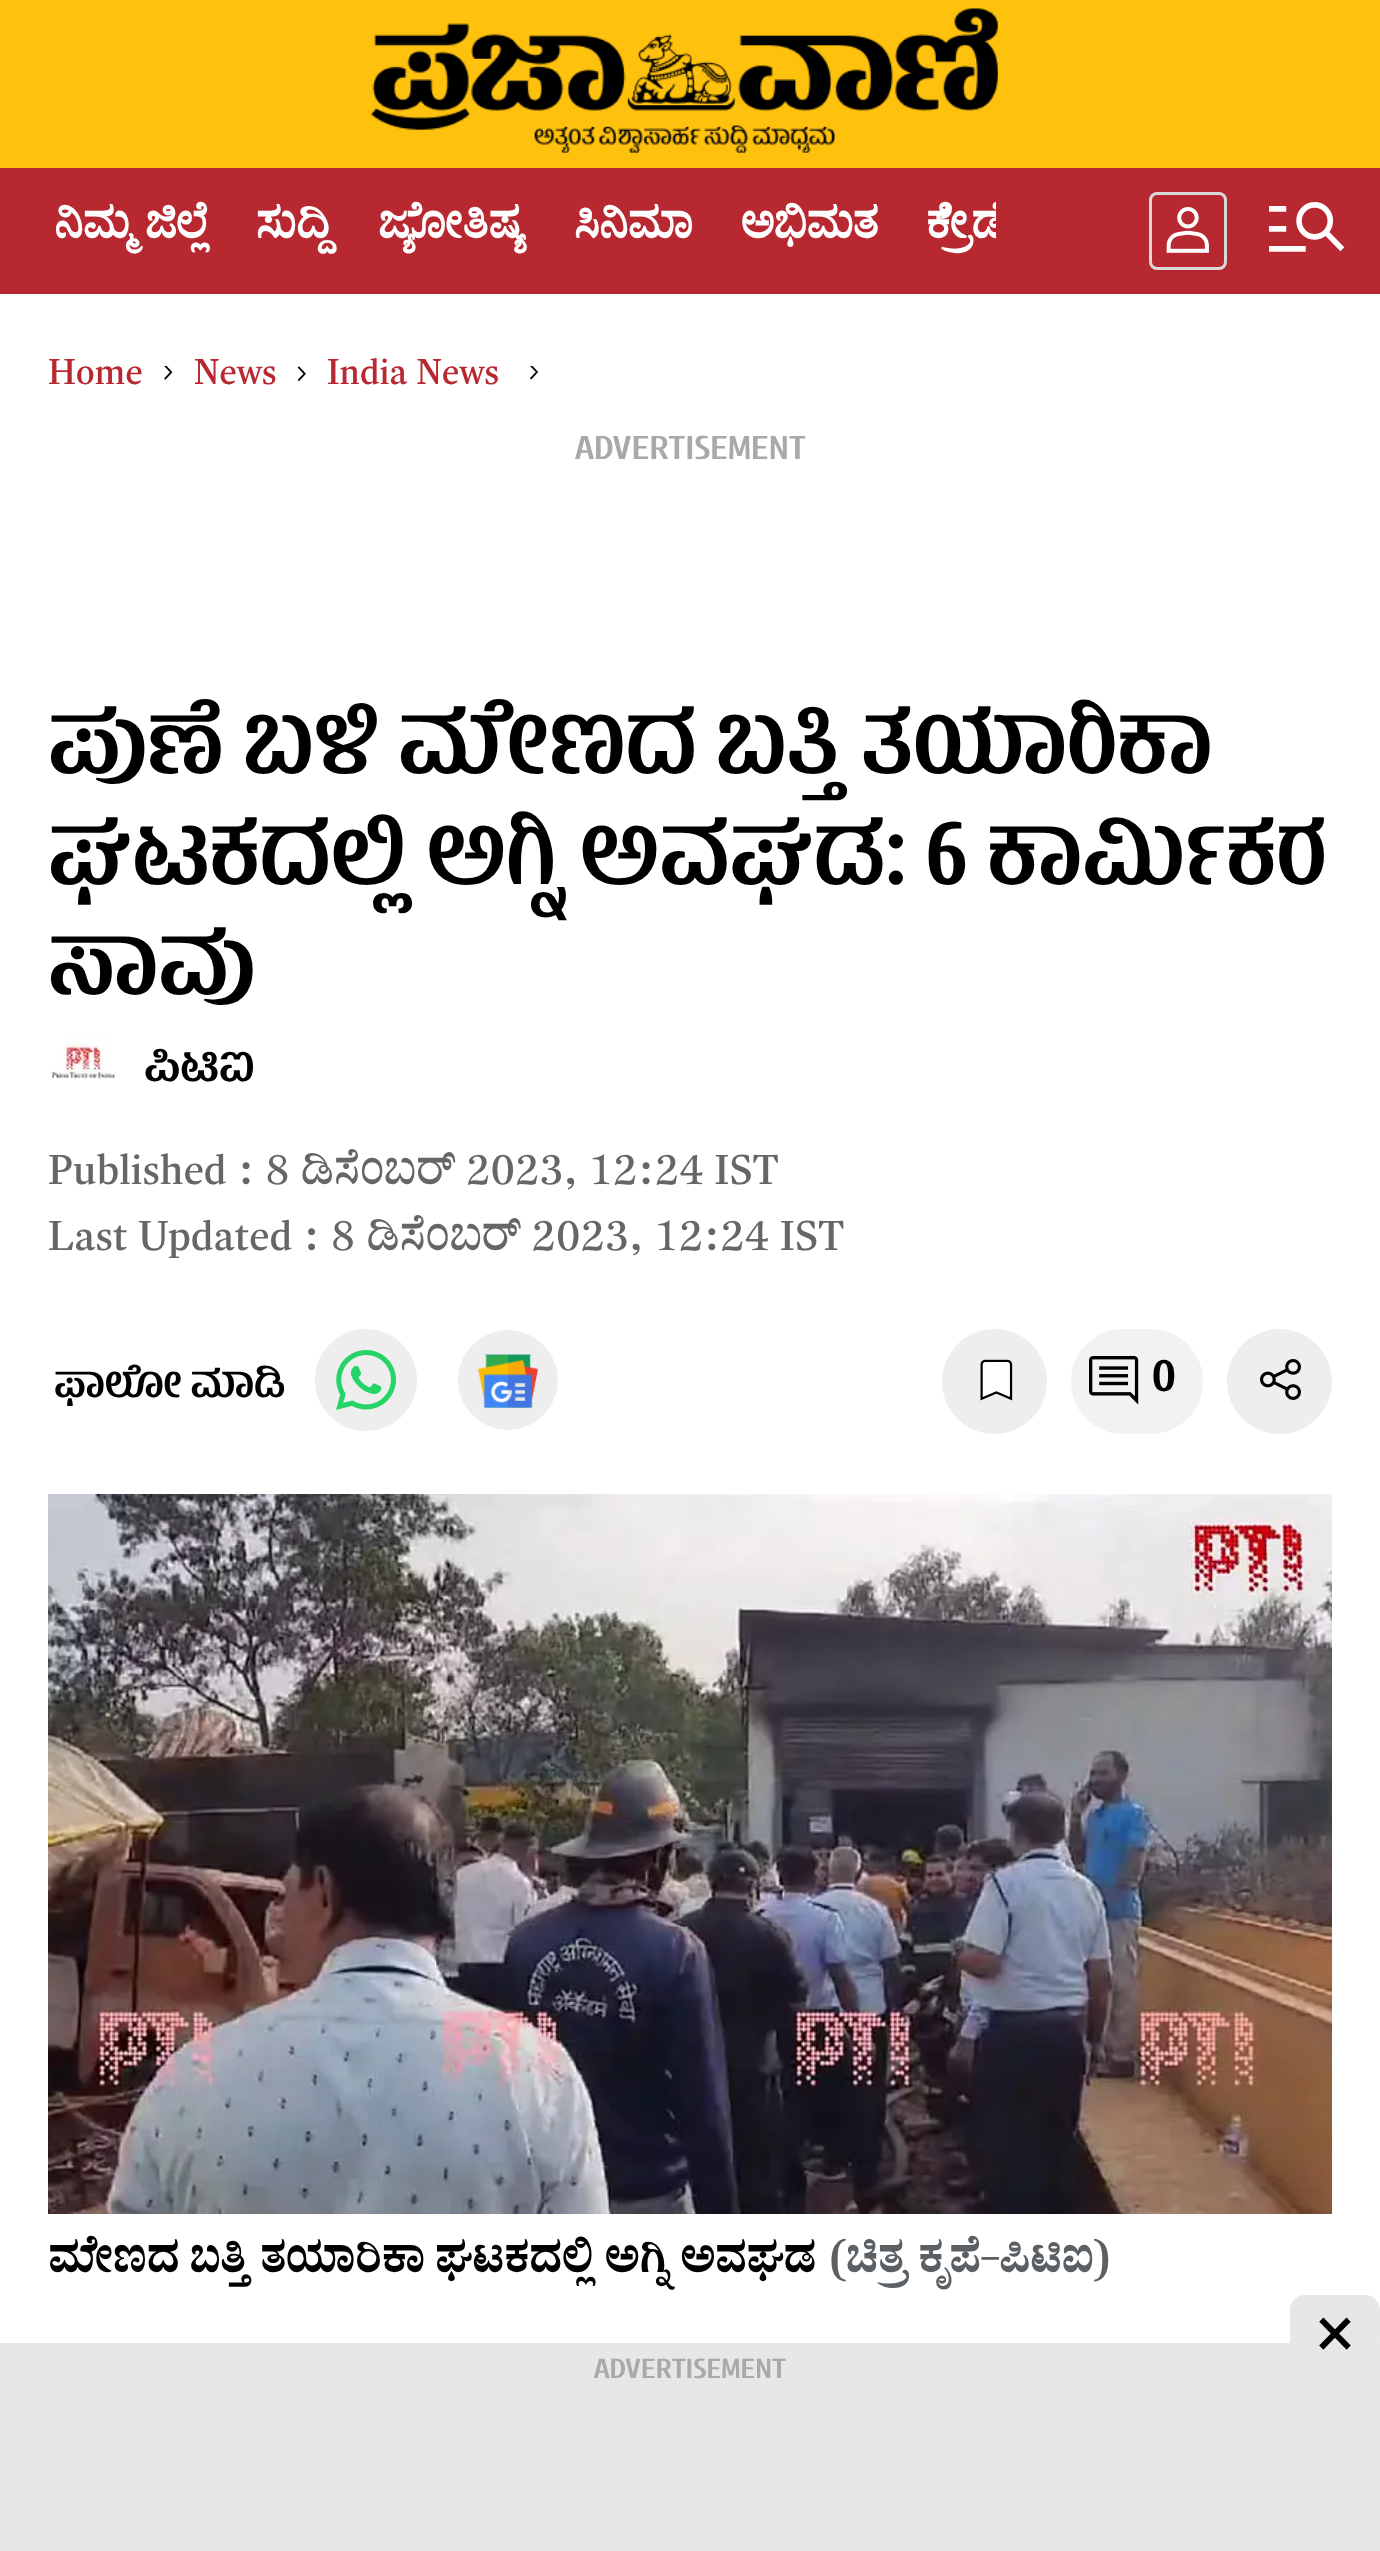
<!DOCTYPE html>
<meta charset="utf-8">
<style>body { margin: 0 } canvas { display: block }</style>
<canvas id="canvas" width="1380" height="2551"></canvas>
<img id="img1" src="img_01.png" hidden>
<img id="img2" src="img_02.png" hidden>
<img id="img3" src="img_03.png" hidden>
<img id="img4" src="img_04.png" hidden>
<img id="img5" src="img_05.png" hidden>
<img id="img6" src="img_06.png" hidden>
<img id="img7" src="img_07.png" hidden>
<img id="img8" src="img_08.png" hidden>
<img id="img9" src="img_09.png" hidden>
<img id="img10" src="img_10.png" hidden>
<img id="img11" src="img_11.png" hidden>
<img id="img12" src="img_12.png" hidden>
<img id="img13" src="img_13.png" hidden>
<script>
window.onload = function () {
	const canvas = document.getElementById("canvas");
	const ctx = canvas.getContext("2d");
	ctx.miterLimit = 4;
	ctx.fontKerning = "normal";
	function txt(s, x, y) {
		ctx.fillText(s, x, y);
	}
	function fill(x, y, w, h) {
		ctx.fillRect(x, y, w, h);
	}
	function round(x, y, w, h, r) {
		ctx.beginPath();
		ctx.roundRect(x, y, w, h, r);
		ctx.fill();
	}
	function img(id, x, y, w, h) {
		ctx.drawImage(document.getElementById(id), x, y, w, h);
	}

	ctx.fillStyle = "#FFFFFF";
	fill(0, 0, 1380, 2551);
	ctx.fillStyle = "#FEC10D";
	fill(0, 0, 1380, 168);
	img("img1", 371, 8, 627, 145);
	ctx.fillStyle = "#B82831";
	fill(0, 168, 1380, 126);
	ctx.beginPath();
	ctx.roundRect(1150.5, 193.5, 75, 75, 6.5);
	ctx.strokeStyle = "#D9D9D9";
	ctx.lineWidth = 3;
	ctx.stroke();
	img("img2", 1166, 207, 43, 46);
	img("img3", 1269, 202, 76, 50);
	ctx.fillStyle = "#E7E7E7";
	fill(0, 2343, 1380, 208);
	round(1290, 2295, 90, 60, 15);
	img("img4", 164, 366, 9, 14);
	img("img5", 297, 366, 9, 15);
	img("img6", 530, 366, 9, 14);
	img("img7", 50, 1037, 67, 42);
	ctx.fillStyle = "#EEEEEE";
	ctx.beginPath();
	ctx.arc(366, 1380, 51, 0, Math.PI * 2);
	ctx.fill();
	img("img8", 336, 1350, 60, 60);
	img("img9", 458, 1330, 100, 100);
	ctx.beginPath();
	ctx.arc(994.5, 1381.5, 52.5, 0, Math.PI * 2);
	ctx.fill();
	img("img10", 980, 1359, 33, 42);
	ctx.fillStyle = "#F2F2F2";
	ctx.beginPath();
	ctx.roundRect(1072.5, 1330.5, 129, 102, 51);
	ctx.fill();
	ctx.strokeStyle = "#F2F2F2";
	ctx.stroke();
	img("img11", 1089, 1356, 50, 49);
	ctx.fillStyle = "#EEEEEE";
	ctx.beginPath();
	ctx.arc(1279.5, 1381.5, 52.5, 0, Math.PI * 2);
	ctx.fill();
	img("img12", 1260, 1359, 41, 41);
	img("img13", 48, 1494, 1284, 720);
	ctx.font = "bold 42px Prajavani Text";
	ctx.fillStyle = "#FFFFFF";
	txt("ನಿಮ್ಮ ಜಿಲ್ಲೆ", 54, 238);
	txt("ಸುದ್ದಿ", 256, 238);
	txt("ಜ್ಯೋತಿಷ್ಯ", 378, 238);
	txt("ಸಿನಿಮಾ", 574, 238);
	txt("ಅಭಿಮತ", 741, 238);
	ctx.save();
	ctx.beginPath();
	ctx.rect(30, 186, 966, 90);
	ctx.clip();
	txt("ಕ್ರೀಡೆ", 926, 238);
	ctx.restore();
	ctx.font = "72px Roboto";
	ctx.fillStyle = "#000000";
	txt("×", 1316, 2357);
	ctx.font = "600 30px 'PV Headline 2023'";
	ctx.fillStyle = "#A9A9A9";
	txt("ADVERTISEMENT", 593, 2378);
	ctx.font = "36px Prajavani Text";
	ctx.fillStyle = "#B82831";
	txt("Home", 48, 384);
	txt("News", 194, 384);
	txt("India News", 327, 384);
	ctx.font = "600 36px 'PV Headline 2023'";
	ctx.fillStyle = "#A9A9A9";
	txt("ADVERTISEMENT", 574, 459);
	ctx.font = "600 96px 'PV Headline 2023'";
	ctx.fillStyle = "#000000";
	txt("ಪುಣೆ ಬಳಿ ಮೇಣದ ಬತ್ತಿ ತಯಾರಿಕಾ", 48, 773);
	txt("ಘಟಕದಲ್ಲಿ ಅಗ್ನಿ ಅವಘಡ: 6 ಕಾರ್ಮಿಕರ", 48, 884);
	txt("ಸಾವು", 48, 994);
	ctx.font = "600 48px 'PV Headline 2023'";
	txt("ಪಿಟಿಐ", 144, 1081);
	ctx.font = "42px Prajavani Text";
	ctx.fillStyle = "#666666";
	txt("Published : 8 ಡಿಸೆಂಬರ್ 2023, 12:24 IST", 48, 1184);
	txt("Last Updated : 8 ಡಿಸೆಂಬರ್ 2023, 12:24 IST", 48, 1250);
	ctx.font = "600 42px 'PV Headline 2023'";
	ctx.fillStyle = "#000000";
	txt("ಫಾಲೋ ಮಾಡಿ", 54, 1397);
	ctx.font = "600 48px 'PV Headline 2023'";
	txt("0", 1152, 1391);
	ctx.font = "600 42px Prajavani Text";
	txt("ಮೇಣದ ಬತ್ತಿ ತಯಾರಿಕಾ ಘಟಕದಲ್ಲಿ ಅಗ್ನಿ ಅವಘಡ", 48, 2272);
	ctx.fillStyle = "#5B6064";
	txt("(ಚಿತ್ರ ಕೃಪೆ–ಪಿಟಿಐ)", 827, 2272);
};
</script>
